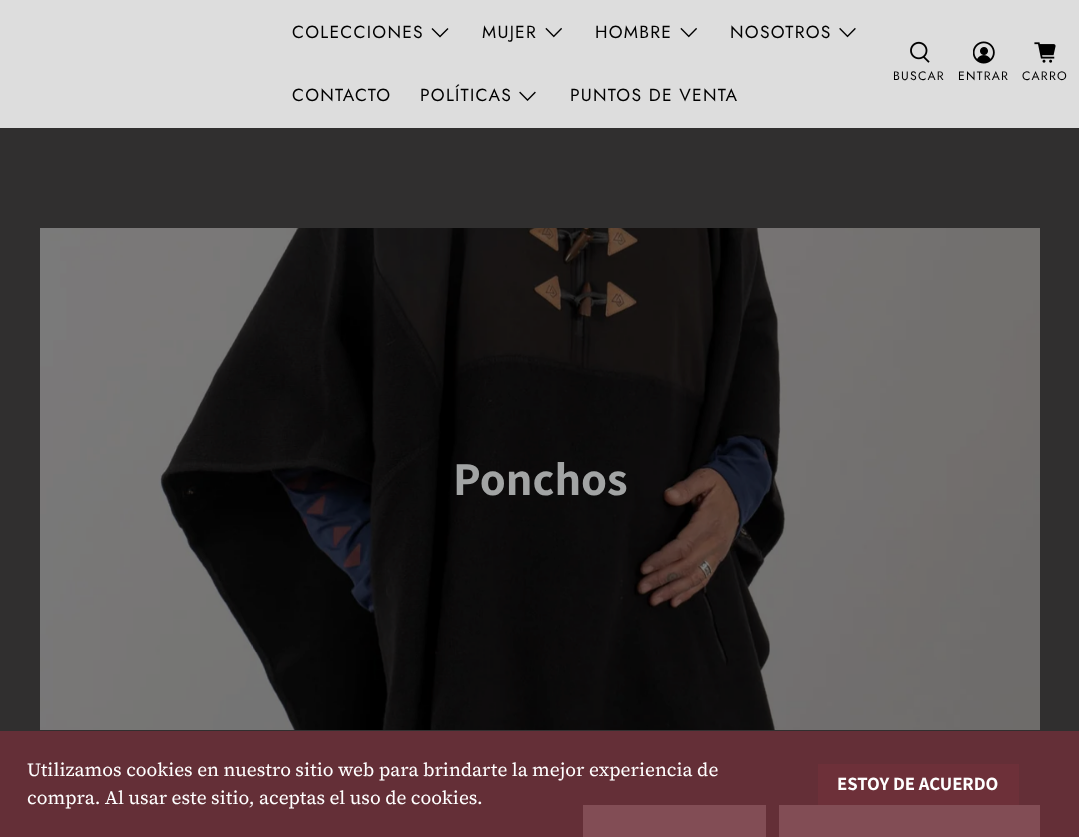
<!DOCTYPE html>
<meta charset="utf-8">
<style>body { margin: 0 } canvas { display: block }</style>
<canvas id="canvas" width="1079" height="837"></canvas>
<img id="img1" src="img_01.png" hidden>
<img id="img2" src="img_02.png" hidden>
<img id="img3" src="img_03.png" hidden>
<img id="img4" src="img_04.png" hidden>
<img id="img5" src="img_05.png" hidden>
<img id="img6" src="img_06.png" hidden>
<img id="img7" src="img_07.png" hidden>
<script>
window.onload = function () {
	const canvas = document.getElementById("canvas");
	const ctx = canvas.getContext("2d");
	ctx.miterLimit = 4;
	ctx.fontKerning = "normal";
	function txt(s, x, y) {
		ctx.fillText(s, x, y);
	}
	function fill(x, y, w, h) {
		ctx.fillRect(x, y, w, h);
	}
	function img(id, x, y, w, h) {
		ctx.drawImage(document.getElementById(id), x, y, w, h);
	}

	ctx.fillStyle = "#302F2F";
	fill(0, 0, 1079, 837);
	ctx.fillStyle = "#DDDDDD";
	fill(0, 0, 1079, 128);
	ctx.fillStyle = "#000000";
	ctx.beginPath();
	ctx.moveTo(440, 37.5);
	ctx.lineTo(431.5, 29);
	ctx.lineTo(432.5, 28);
	ctx.lineTo(440, 35.5);
	ctx.lineTo(447.5, 28);
	ctx.lineTo(448.5, 29);
	ctx.closePath();
	ctx.fill();
	img("img1", 545, 27, 17, 11);
	img("img1", 680, 27, 17, 11);
	img("img2", 839, 27, 17, 11);
	img("img3", 519, 91, 17, 10);
	img("img4", 910, 41, 20, 22);
	img("img5", 973, 41, 22, 23);
	img("img6", 1034, 42, 22, 21);
	img("img7", 40, 228, 1000, 502);
	ctx.fillStyle = "#FFFFFF";
	fill(583, 805, 183, 32);
	fill(779, 805, 261, 32);
	ctx.fillStyle = "rgba(109, 48, 57, 0.86)";
	fill(0, 731, 1079, 106);
	ctx.fillStyle = "#6D3039";
	fill(818, 764, 201, 41);
	ctx.letterSpacing = "1.25px";
	ctx.font = "17.5px Jost";
	ctx.fillStyle = "#000000";
	txt("COLECCIONES", 292, 38);
	txt("MUJER", 482, 38);
	txt("HOMBRE", 595, 38);
	txt("NOSOTROS", 730, 38);
	txt("CONTACTO", 292, 101);
	txt("POLÍTICAS", 420, 101);
	txt("PUNTOS DE VENTA", 570, 101);
	ctx.font = "12.25px Jost";
	txt("BUSCAR", 893, 80);
	txt("ENTRAR", 958, 80);
	txt("CARRO", 1022, 80);
	ctx.letterSpacing = "0px";
	ctx.font = "bold 47px Assistant";
	ctx.fillStyle = "#A2A4A4";
	txt("Ponchos", 453, 495);
	ctx.font = "18.75px 'Source Serif 4'";
	ctx.fillStyle = "#FFFFFF";
	txt("Utilizamos cookies en nuestro sitio web para brindarte la mejor experiencia de", 27, 776);
	txt("compra. Al usar este sitio, aceptas el uso de cookies.", 27, 804);
	ctx.font = "bold 18.75px Assistant";
	txt("ESTOY DE ACUERDO", 837, 790);
};
</script>
